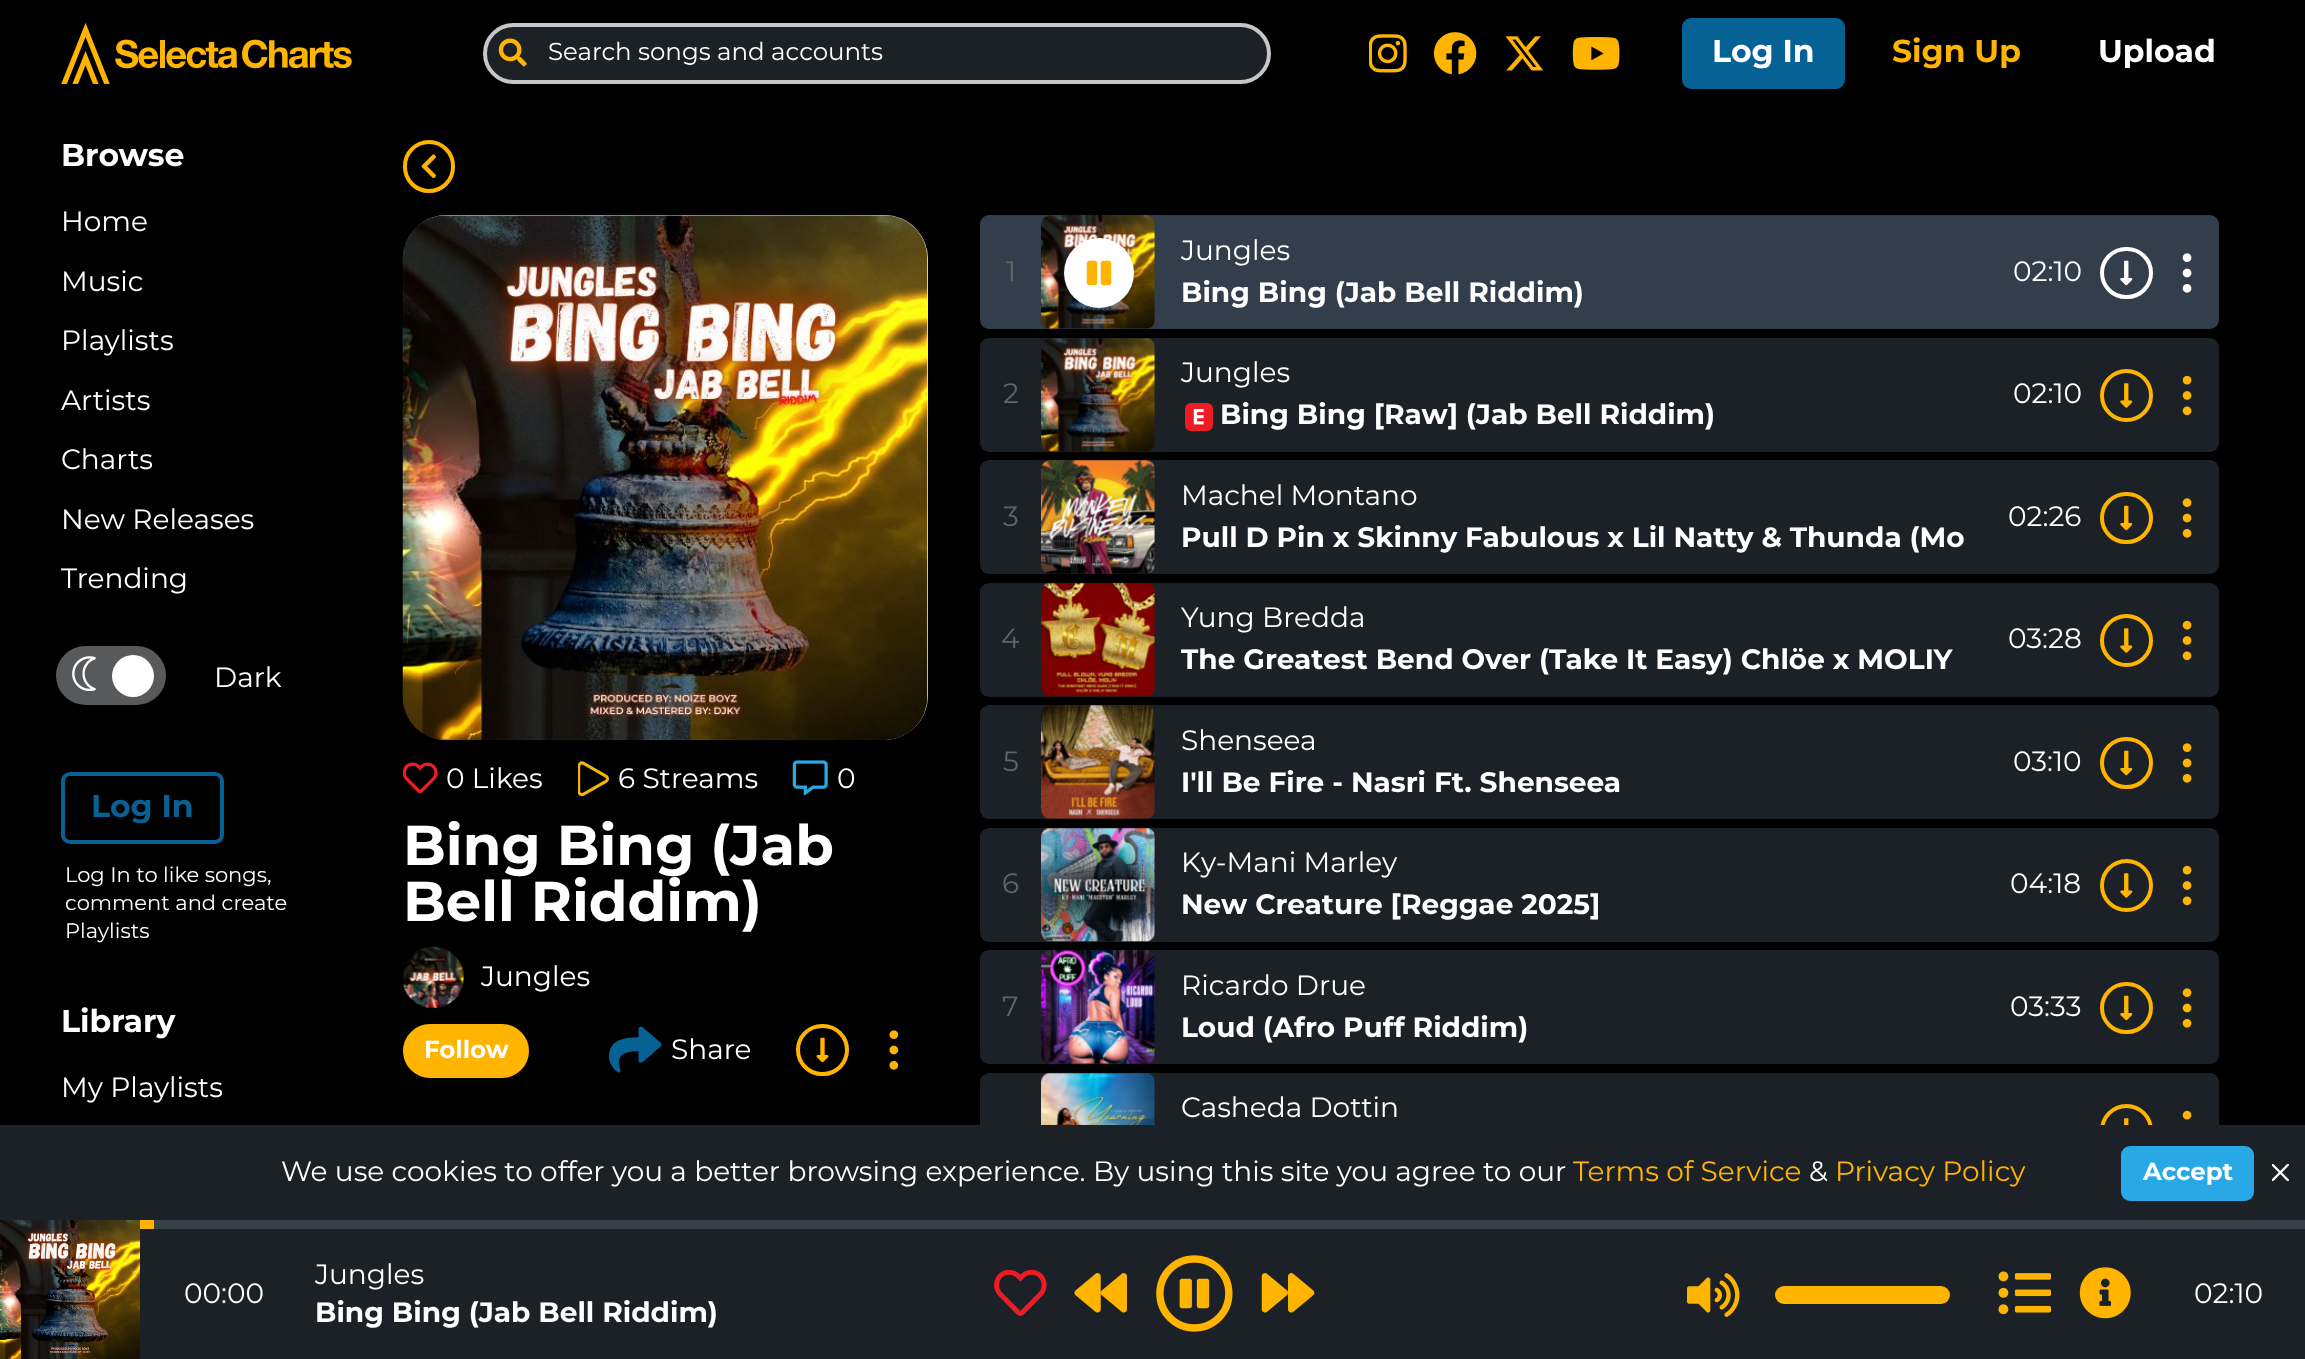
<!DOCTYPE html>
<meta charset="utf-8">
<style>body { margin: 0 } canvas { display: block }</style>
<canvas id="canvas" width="2305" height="1359"></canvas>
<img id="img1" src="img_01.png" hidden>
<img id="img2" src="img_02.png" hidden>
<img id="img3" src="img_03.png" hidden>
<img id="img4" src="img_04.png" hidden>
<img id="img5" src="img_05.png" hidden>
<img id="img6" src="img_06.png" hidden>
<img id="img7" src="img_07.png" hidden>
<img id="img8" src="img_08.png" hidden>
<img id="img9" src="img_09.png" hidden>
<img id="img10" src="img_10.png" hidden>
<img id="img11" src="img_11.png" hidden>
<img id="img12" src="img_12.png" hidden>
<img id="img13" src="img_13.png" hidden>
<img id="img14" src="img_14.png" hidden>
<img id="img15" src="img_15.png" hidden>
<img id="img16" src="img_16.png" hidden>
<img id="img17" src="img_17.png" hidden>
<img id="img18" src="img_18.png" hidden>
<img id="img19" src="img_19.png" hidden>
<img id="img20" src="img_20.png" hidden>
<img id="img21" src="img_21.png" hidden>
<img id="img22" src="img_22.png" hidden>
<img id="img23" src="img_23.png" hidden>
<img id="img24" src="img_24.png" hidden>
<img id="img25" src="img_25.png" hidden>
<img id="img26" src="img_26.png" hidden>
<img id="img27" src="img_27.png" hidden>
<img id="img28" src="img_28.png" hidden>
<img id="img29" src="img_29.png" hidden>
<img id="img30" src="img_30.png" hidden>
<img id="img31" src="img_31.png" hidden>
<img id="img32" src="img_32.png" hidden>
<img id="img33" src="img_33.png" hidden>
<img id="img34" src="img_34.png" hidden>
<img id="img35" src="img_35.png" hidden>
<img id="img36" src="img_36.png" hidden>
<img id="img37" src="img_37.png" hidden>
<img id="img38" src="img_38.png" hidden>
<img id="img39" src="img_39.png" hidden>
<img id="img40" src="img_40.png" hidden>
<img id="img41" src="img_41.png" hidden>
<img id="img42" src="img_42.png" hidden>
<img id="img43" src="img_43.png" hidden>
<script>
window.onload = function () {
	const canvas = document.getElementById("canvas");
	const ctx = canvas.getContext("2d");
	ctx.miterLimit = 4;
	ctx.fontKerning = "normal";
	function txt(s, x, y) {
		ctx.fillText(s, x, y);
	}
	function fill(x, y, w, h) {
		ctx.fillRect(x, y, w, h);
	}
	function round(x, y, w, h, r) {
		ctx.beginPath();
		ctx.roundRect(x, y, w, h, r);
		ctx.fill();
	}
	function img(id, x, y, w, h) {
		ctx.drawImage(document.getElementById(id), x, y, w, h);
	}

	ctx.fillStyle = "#000000";
	fill(0, 0, 2305, 1359);
	img("img1", 61, 23, 291, 61);
	ctx.fillStyle = "#1B2127";
	ctx.beginPath();
	ctx.roundRect(485, 25, 784, 57, 28.5);
	ctx.fill();
	ctx.strokeStyle = "#C6C6C6";
	ctx.lineWidth = 4;
	ctx.stroke();
	img("img2", 498, 38, 29, 29);
	img("img3", 1369, 34, 38, 39);
	img("img4", 1433, 32, 44, 43);
	img("img5", 1505, 36, 39, 35);
	img("img6", 1572, 37, 48, 33);
	ctx.fillStyle = "#066195";
	ctx.beginPath();
	ctx.roundRect(1684, 20, 159, 67, 7);
	ctx.fill();
	ctx.strokeStyle = "#066195";
	ctx.stroke();
	ctx.fillStyle = "#58595B";
	ctx.beginPath();
	ctx.roundRect(57, 647, 108, 57, 28.5);
	ctx.fill();
	ctx.strokeStyle = "#58595B";
	ctx.lineWidth = 2;
	ctx.stroke();
	ctx.fillStyle = "#FFFFFF";
	ctx.beginPath();
	ctx.arc(133, 676, 21, 0, Math.PI * 2);
	ctx.fill();
	img("img7", 72, 656, 24, 35);
	ctx.beginPath();
	ctx.roundRect(63, 774, 159, 68, 7);
	ctx.strokeStyle = "#066195";
	ctx.lineWidth = 4;
	ctx.stroke();
	ctx.beginPath();
	ctx.roundRect(405, 142, 48, 49, 24);
	ctx.strokeStyle = "#FFB400";
	ctx.stroke();
	img("img8", 421, 154, 15, 25);
	ctx.fillStyle = "#F0F0F0";
	round(403, 215, 525, 525, 44);
	img("img9", 402, 215, 526, 526);
	img("img10", 403, 762, 35, 32);
	img("img11", 578, 761, 31, 35);
	img("img12", 792, 760, 36, 36);
	img("img13", 402, 946, 63, 63);
	ctx.fillStyle = "#FFB400";
	ctx.beginPath();
	ctx.roundRect(405, 1026, 122, 50, 25);
	ctx.fill();
	ctx.stroke();
	img("img14", 609, 1026, 53, 47);
	ctx.beginPath();
	ctx.roundRect(798, 1026, 49, 48, 24);
	ctx.stroke();
	img("img15", 816, 1037, 13, 26);
	img("img16", 889, 1030, 10, 40);
	ctx.fillStyle = "#323E4B";
	round(980, 215, 1239, 114, 9);
	img("img17", 1041, 215, 114, 115);
	ctx.fillStyle = "#FFFFFF";
	ctx.beginPath();
	ctx.arc(1099, 273, 35, 0, Math.PI * 2);
	ctx.fill();
	img("img18", 1086, 260, 26, 26);
	ctx.beginPath();
	ctx.roundRect(2102, 249, 49, 48, 24);
	ctx.strokeStyle = "#FFFFFF";
	ctx.stroke();
	img("img19", 2120, 260, 13, 26);
	img("img20", 2182, 253, 10, 40);
	ctx.fillStyle = "#1B2127";
	round(980, 338, 1239, 114, 9);
	img("img21", 1041, 338, 114, 114);
	img("img22", 1185, 403, 28, 28);
	ctx.beginPath();
	ctx.arc(2126.5, 395.5, 24.5, 0, Math.PI * 2);
	ctx.strokeStyle = "#FFB400";
	ctx.stroke();
	img("img23", 2120, 383, 13, 25);
	img("img24", 2182, 375, 10, 41);
	round(980, 460, 1239, 114, 9);
	img("img25", 1041, 460, 114, 115);
	ctx.beginPath();
	ctx.roundRect(2102, 494, 49, 48, 24);
	ctx.stroke();
	img("img26", 2120, 505, 13, 26);
	img("img27", 2182, 498, 10, 40);
	round(980, 583, 1239, 114, 9);
	img("img28", 1041, 582, 114, 115);
	ctx.beginPath();
	ctx.arc(2126.5, 640.5, 24.5, 0, Math.PI * 2);
	ctx.stroke();
	img("img23", 2120, 628, 13, 25);
	img("img24", 2182, 620, 10, 41);
	round(980, 705, 1239, 114, 9);
	img("img29", 1041, 705, 114, 115);
	ctx.beginPath();
	ctx.roundRect(2102, 739, 49, 48, 24);
	ctx.stroke();
	img("img26", 2120, 750, 13, 26);
	img("img27", 2182, 743, 10, 40);
	round(980, 828, 1239, 114, 9);
	img("img30", 1041, 827, 114, 115);
	ctx.beginPath();
	ctx.arc(2126.5, 885.5, 24.5, 0, Math.PI * 2);
	ctx.stroke();
	img("img23", 2120, 873, 13, 25);
	img("img24", 2182, 865, 10, 41);
	round(980, 950, 1239, 114, 9);
	img("img31", 1041, 950, 114, 115);
	ctx.beginPath();
	ctx.roundRect(2102, 984, 49, 48, 24);
	ctx.stroke();
	img("img26", 2120, 995, 13, 26);
	img("img27", 2182, 988, 10, 40);
	round(980, 1073, 1239, 114, 9);
	img("img32", 1041, 1072, 114, 53);
	ctx.beginPath();
	ctx.arc(2126.5, 1130.5, 24.5, 0, Math.PI * 2);
	ctx.stroke();
	img("img33", 2124, 1118, 5, 7);
	img("img34", 2182, 1110, 10, 10);
	fill(0, 1125, 2305, 95);
	ctx.fillStyle = "#28A9E5";
	ctx.beginPath();
	ctx.roundRect(2123, 1148, 129, 51, 7);
	ctx.fill();
	ctx.strokeStyle = "#28A9E5";
	ctx.stroke();
	img("img35", 2272, 1164, 17, 17);
	ctx.fillStyle = "#1B2127";
	fill(140, 1229, 2165, 130);
	ctx.fillStyle = "#373F47";
	fill(154, 1220, 2151, 9);
	ctx.fillStyle = "#FFB400";
	fill(140, 1220, 14, 9);
	img("img36", 0, 1220, 140, 139);
	img("img37", 994, 1269, 53, 47);
	img("img38", 1074, 1273, 53, 40);
	img("img39", 1156, 1255, 77, 77);
	img("img40", 1261, 1273, 54, 40);
	img("img41", 1687, 1273, 53, 44);
	round(1775, 1286, 175, 18, 9);
	img("img42", 1998, 1271, 53, 44);
	img("img43", 2079, 1267, 52, 52);
	ctx.font = "24.5px Montserrat";
	ctx.fillStyle = "#FFFFFF";
	txt("Search songs and accounts", 548, 60);
	ctx.font = "bold 31.5px Montserrat";
	txt("Log In", 1712, 62);
	ctx.fillStyle = "#FFB400";
	txt("Sign Up", 1892, 62);
	ctx.fillStyle = "#FFFFFF";
	txt("Upload", 2098, 62);
	txt("Browse", 61, 166);
	ctx.font = "28px Montserrat";
	txt("Home", 61, 231);
	txt("Music", 61, 291);
	txt("Playlists", 61, 350);
	txt("Artists", 61, 410);
	txt("Charts", 61, 469);
	txt("New Releases", 61, 529);
	txt("Trending", 61, 588);
	txt("Dark", 214, 687);
	ctx.font = "bold 31.5px Montserrat";
	ctx.fillStyle = "#066195";
	txt("Log In", 91, 817);
	ctx.font = "21px Montserrat";
	ctx.fillStyle = "#FFFFFF";
	txt("Log In to like songs,", 65, 882);
	txt("comment and create", 65, 910);
	txt("Playlists", 65, 938);
	ctx.font = "bold 31.5px Montserrat";
	txt("Library", 61, 1032);
	ctx.font = "28px Montserrat";
	txt("My Playlists", 61, 1097);
	txt("0 Likes", 446, 788);
	txt("6 Streams", 618, 788);
	txt("0", 837, 788);
	ctx.font = "bold 56px Montserrat";
	txt("Bing Bing (Jab", 403, 865);
	txt("Bell Riddim)", 403, 921);
	ctx.font = "28px Montserrat";
	txt("Jungles", 481, 986);
	ctx.font = "bold 24.5px Montserrat";
	txt("Follow", 424, 1058);
	ctx.font = "28px Montserrat";
	txt("Share", 671, 1059);
	ctx.fillStyle = "#646464";
	txt("1", 1006, 281);
	ctx.fillStyle = "#FFFFFF";
	txt("Jungles", 1181, 260);
	ctx.font = "bold 28px Montserrat";
	txt("Bing Bing (Jab Bell Riddim)", 1181, 302);
	ctx.font = "28px Montserrat";
	txt("02:10", 2013, 281);
	ctx.fillStyle = "#646464";
	txt("2", 1003, 403);
	ctx.fillStyle = "#FFFFFF";
	txt("Jungles", 1181, 382);
	ctx.font = "bold 28px Montserrat";
	txt("Bing Bing [Raw] (Jab Bell Riddim)", 1220, 424);
	ctx.font = "28px Montserrat";
	txt("02:10", 2013, 403);
	ctx.fillStyle = "#646464";
	txt("3", 1003, 526);
	ctx.fillStyle = "#FFFFFF";
	txt("Machel Montano", 1181, 505);
	ctx.font = "bold 28px Montserrat";
	txt("Pull D Pin x Skinny Fabulous x Lil Natty & Thunda (Mo", 1181, 547);
	ctx.font = "28px Montserrat";
	txt("02:26", 2008, 526);
	ctx.fillStyle = "#646464";
	txt("4", 1001, 648);
	ctx.fillStyle = "#FFFFFF";
	txt("Yung Bredda", 1181, 627);
	ctx.font = "bold 28px Montserrat";
	txt("The Greatest Bend Over (Take It Easy) Chlöe x MOLIY", 1181, 669);
	ctx.font = "28px Montserrat";
	txt("03:28", 2008, 648);
	ctx.fillStyle = "#646464";
	txt("5", 1003, 771);
	ctx.fillStyle = "#FFFFFF";
	txt("Shenseea", 1181, 750);
	ctx.font = "bold 28px Montserrat";
	txt("I'll Be Fire - Nasri Ft. Shenseea", 1181, 792);
	ctx.font = "28px Montserrat";
	txt("03:10", 2013, 771);
	ctx.fillStyle = "#646464";
	txt("6", 1002, 893);
	ctx.fillStyle = "#FFFFFF";
	txt("Ky-Mani Marley", 1181, 872);
	ctx.font = "bold 28px Montserrat";
	txt("New Creature [Reggae 2025]", 1181, 914);
	ctx.font = "28px Montserrat";
	txt("04:18", 2010, 893);
	ctx.fillStyle = "#646464";
	txt("7", 1002, 1016);
	ctx.fillStyle = "#FFFFFF";
	txt("Ricardo Drue", 1181, 995);
	ctx.font = "bold 28px Montserrat";
	txt("Loud (Afro Puff Riddim)", 1181, 1037);
	ctx.font = "28px Montserrat";
	txt("03:33", 2010, 1016);
	txt("Casheda Dottin", 1181, 1117);
	txt("We use cookies to offer you a better browsing experience. By using this site you agree to our", 281, 1181);
	ctx.fillStyle = "#FFB400";
	txt("Terms of Service", 1573, 1181);
	ctx.fillStyle = "#FFFFFF";
	txt("&", 1809, 1181);
	ctx.fillStyle = "#FFB400";
	txt("Privacy Policy", 1835, 1181);
	ctx.font = "bold 24.5px Montserrat";
	ctx.fillStyle = "#FFFFFF";
	txt("Accept", 2143, 1180);
	ctx.font = "28px Montserrat";
	txt("00:00", 184, 1303);
	txt("Jungles", 315, 1284);
	ctx.font = "bold 28px Montserrat";
	txt("Bing Bing (Jab Bell Riddim)", 315, 1322);
	ctx.font = "28px Montserrat";
	txt("02:10", 2194, 1303);
};
</script>
